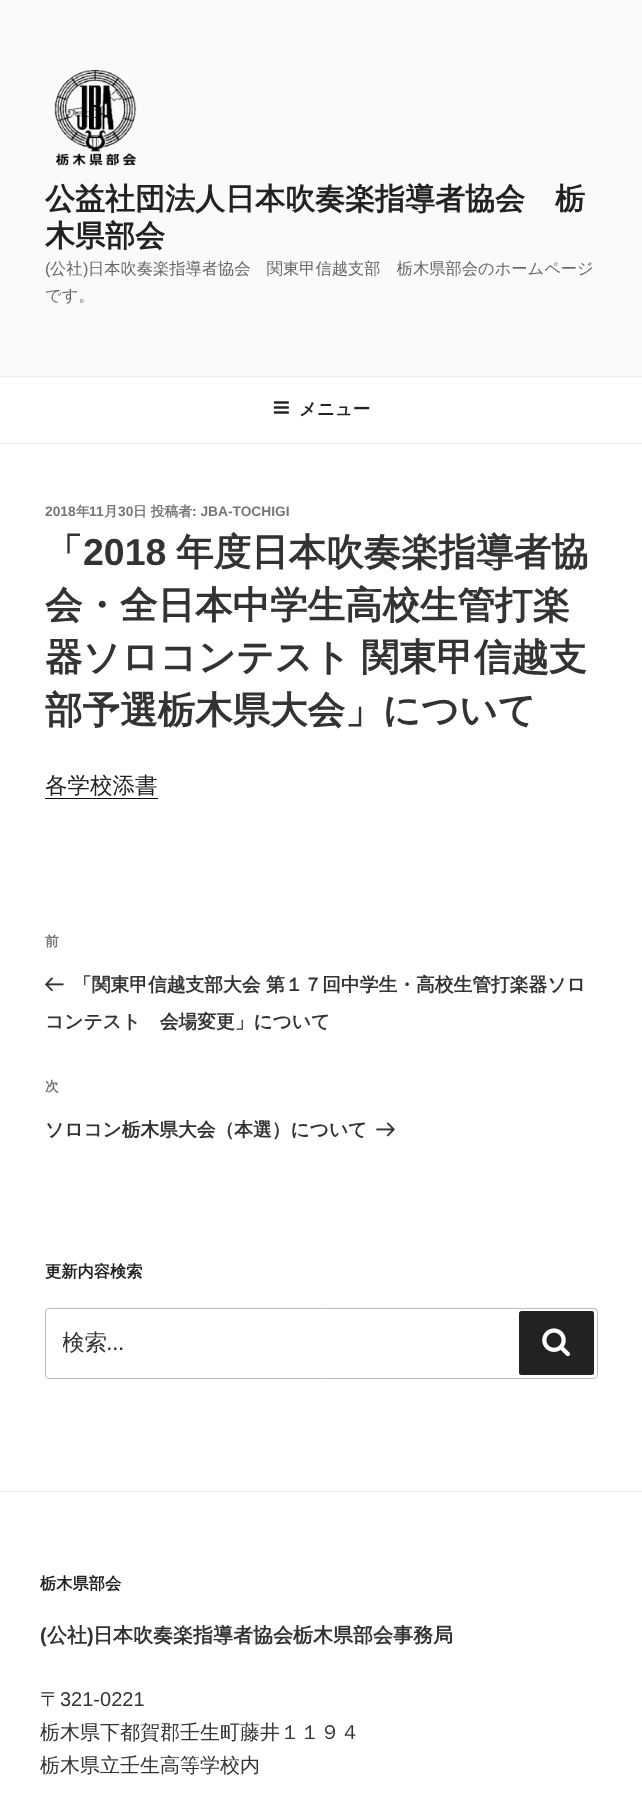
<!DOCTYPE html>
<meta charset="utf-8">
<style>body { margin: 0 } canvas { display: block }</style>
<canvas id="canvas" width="642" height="1799"></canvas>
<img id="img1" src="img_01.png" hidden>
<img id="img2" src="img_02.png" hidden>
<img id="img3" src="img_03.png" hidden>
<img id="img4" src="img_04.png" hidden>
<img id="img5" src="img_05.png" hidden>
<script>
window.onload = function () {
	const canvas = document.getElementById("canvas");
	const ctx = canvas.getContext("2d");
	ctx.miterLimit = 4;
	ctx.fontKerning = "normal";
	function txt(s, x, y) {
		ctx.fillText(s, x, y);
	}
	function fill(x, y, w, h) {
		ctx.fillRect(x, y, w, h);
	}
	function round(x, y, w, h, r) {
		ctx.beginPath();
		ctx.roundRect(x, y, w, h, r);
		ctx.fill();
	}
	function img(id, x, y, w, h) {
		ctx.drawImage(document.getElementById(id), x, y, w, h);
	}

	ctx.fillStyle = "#FFFFFF";
	fill(0, 0, 642, 1799);
	ctx.fillStyle = "#FAFAFA";
	fill(0, 0, 642, 376);
	img("img1", 54, 69, 83, 97);
	ctx.fillStyle = "#EEEEEE";
	fill(0, 376, 642, 1);
	fill(0, 443, 642, 1);
	img("img2", 273, 401, 16, 13);
	ctx.fillStyle = "#0F0F0F";
	fill(45, 798, 113, 1);
	img("img3", 45, 977, 19, 15);
	img("img4", 376, 1122, 19, 15);
	ctx.beginPath();
	ctx.roundRect(45.5, 1308.5, 552, 70, 3.5);
	ctx.strokeStyle = "#BBBBBB";
	ctx.stroke();
	ctx.fillStyle = "#222222";
	round(519, 1311, 75, 64, 2.5);
	img("img5", 542, 1328, 28, 28);
	ctx.fillStyle = "#EEEEEE";
	fill(0, 1491, 642, 1);
	ctx.font = "bold 30px WenQuanYi Zen Hei";
	ctx.fillStyle = "#222222";
	txt("公益社団法人日本吹奏楽指導者協会　栃", 45, 209);
	txt("木県部会", 45, 246);
	ctx.font = "16.25px Liberation Sans";
	ctx.fillStyle = "#666666";
	txt("(", 45, 274);
	ctx.font = "500 16.25px WenQuanYi Zen Hei";
	txt("公社", 50, 274);
	ctx.font = "16.25px Liberation Sans";
	txt(")", 83, 274);
	ctx.font = "500 16.25px WenQuanYi Zen Hei";
	txt("日本吹奏楽指導者協会　関東甲信越支部　栃木県部会のホームページ", 88, 274);
	txt("です。", 45, 301);
	ctx.font = "bold 17.5px WenQuanYi Zen Hei";
	ctx.fillStyle = "#222222";
	txt("メニュー", 299, 415);
	ctx.font = "bold 13.75px Liberation Sans";
	ctx.fillStyle = "#767676";
	txt("2018", 45, 516);
	ctx.font = "bold 13.75px WenQuanYi Zen Hei";
	txt("年", 76, 516);
	ctx.font = "bold 13.75px Liberation Sans";
	txt("11", 89, 516);
	ctx.font = "bold 13.75px WenQuanYi Zen Hei";
	txt("月", 104, 516);
	ctx.font = "bold 13.75px Liberation Sans";
	txt("30", 118, 516);
	ctx.font = "bold 13.75px WenQuanYi Zen Hei";
	txt("日 投稿者", 133, 516);
	ctx.font = "bold 13.75px Liberation Sans";
	txt(": JBA-TOCHIGI", 192, 516);
	ctx.font = "bold 37.5px WenQuanYi Zen Hei";
	ctx.fillStyle = "#333333";
	txt("「", 45, 565);
	ctx.font = "bold 37.5px Liberation Sans";
	txt("2018", 83, 565);
	ctx.font = "bold 37.5px WenQuanYi Zen Hei";
	txt("年度日本吹奏楽指導者協", 176, 565);
	txt("会・全日本中学生高校生管打楽", 45, 618);
	ctx.wordSpacing = "-1px";
	txt("器ソロコンテスト 関東甲信越支", 45, 670);
	ctx.wordSpacing = "0px";
	txt("部予選栃木県大会」について", 45, 723);
	ctx.font = "500 22.5px WenQuanYi Zen Hei";
	ctx.fillStyle = "#222222";
	txt("各学校添書", 45, 793);
	ctx.font = "bold 13.75px WenQuanYi Zen Hei";
	ctx.fillStyle = "#767676";
	txt("前", 45, 946);
	ctx.font = "bold 18.75px WenQuanYi Zen Hei";
	ctx.fillStyle = "#333333";
	txt("「関東甲信越支部大会 第１７回中学生・高校生管打楽器ソロ", 73, 991);
	txt("コンテスト　会場変更」について", 45, 1028);
	ctx.font = "bold 13.75px WenQuanYi Zen Hei";
	ctx.fillStyle = "#767676";
	txt("次", 45, 1091);
	ctx.font = "bold 18.75px WenQuanYi Zen Hei";
	ctx.fillStyle = "#333333";
	txt("ソロコン栃木県大会（本選）について", 45, 1136);
	ctx.font = "bold 16.25px WenQuanYi Zen Hei";
	ctx.fillStyle = "#222222";
	txt("更新内容検索", 45, 1277);
	ctx.save();
	ctx.beginPath();
	ctx.rect(63, 1328, 512, 30);
	ctx.clip();
	ctx.font = "500 22.5px WenQuanYi Zen Hei";
	ctx.fillStyle = "#333333";
	txt("検索", 62, 1350);
	ctx.restore();
	ctx.font = "22.5px Libre Franklin";
	ctx.fillStyle = "#333333";
	txt("…", 107, 1350);
	ctx.font = "bold 16.25px WenQuanYi Zen Hei";
	ctx.fillStyle = "#222222";
	txt("栃木県部会", 40, 1589);
	ctx.font = "bold 20px Liberation Sans";
	ctx.fillStyle = "#333333";
	txt("(", 40, 1642);
	ctx.font = "bold 20px WenQuanYi Zen Hei";
	txt("公社", 47, 1642);
	ctx.font = "bold 20px Liberation Sans";
	txt(")", 87, 1642);
	ctx.font = "bold 20px WenQuanYi Zen Hei";
	txt("日本吹奏楽指導者協会栃木県部会事務局", 93, 1642);
	ctx.font = "500 20px WenQuanYi Zen Hei";
	txt("〒", 40, 1706);
	ctx.font = "20px Liberation Sans";
	txt("321-0221", 60, 1706);
	ctx.font = "500 20px WenQuanYi Zen Hei";
	txt("栃木県下都賀郡壬生町藤井１１９４", 40, 1739);
	txt("栃木県立壬生高等学校内", 40, 1772);
};
</script>
